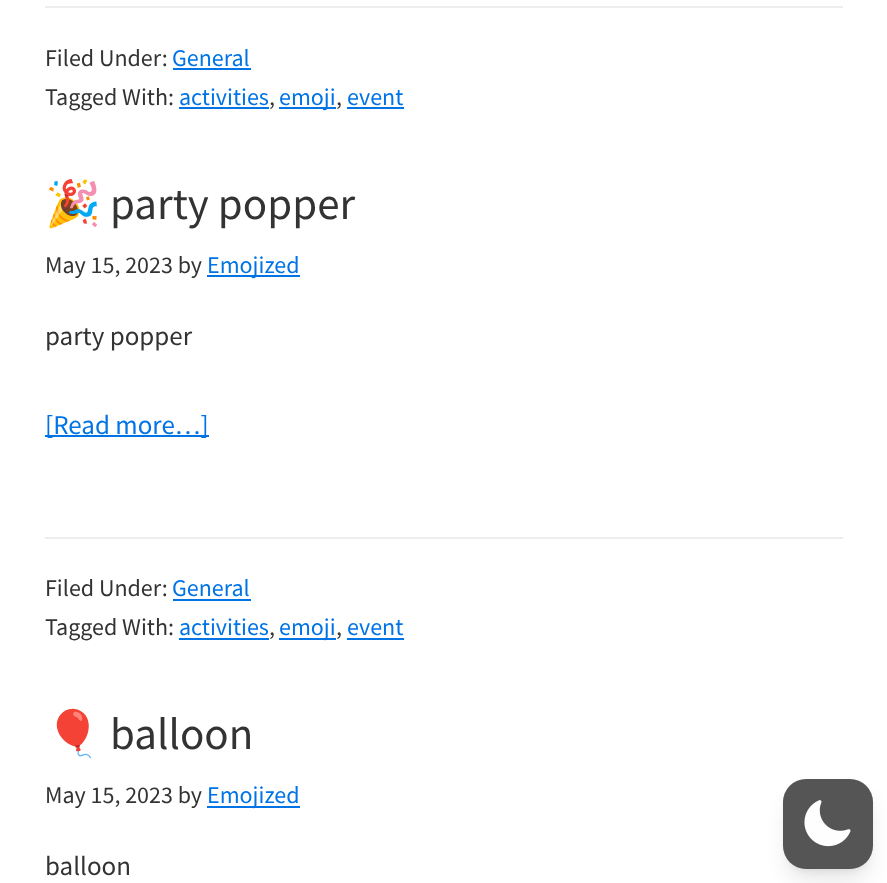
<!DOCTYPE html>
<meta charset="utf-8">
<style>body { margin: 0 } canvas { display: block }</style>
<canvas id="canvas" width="887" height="883"></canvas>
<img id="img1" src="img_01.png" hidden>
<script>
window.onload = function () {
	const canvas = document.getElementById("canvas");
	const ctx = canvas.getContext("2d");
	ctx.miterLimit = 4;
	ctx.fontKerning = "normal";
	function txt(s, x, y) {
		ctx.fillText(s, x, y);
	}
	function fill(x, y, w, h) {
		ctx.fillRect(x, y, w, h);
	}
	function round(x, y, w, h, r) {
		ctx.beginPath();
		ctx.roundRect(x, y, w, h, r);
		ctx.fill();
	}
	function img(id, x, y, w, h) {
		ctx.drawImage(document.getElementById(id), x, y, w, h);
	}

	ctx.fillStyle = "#FFFFFF";
	fill(0, 0, 887, 883);
	ctx.fillStyle = "#EEEEEE";
	fill(45, 6, 798, 2);
	ctx.fillStyle = "#0073E5";
	fill(173, 68, 78, 2);
	fill(179, 107, 90, 2);
	fill(279, 107, 57, 2);
	fill(347, 107, 57, 2);
	fill(207, 275, 93, 2);
	fill(45, 435, 164, 2);
	ctx.fillStyle = "#EEEEEE";
	fill(45, 537, 798, 2);
	ctx.fillStyle = "#0073E5";
	fill(173, 599, 78, 2);
	fill(179, 638, 90, 2);
	fill(279, 638, 57, 2);
	fill(347, 638, 57, 2);
	fill(207, 806, 93, 2);
	ctx.fillStyle = "rgba(0, 0, 0, 0.1)";
	ctx.filter = "blur(4.5px)";
	ctx.beginPath();
	ctx.roundRect(789, 791, 78, 78, 17);
	ctx.fill();
	ctx.filter = "none";
	ctx.filter = "blur(11px)";
	ctx.beginPath();
	ctx.roundRect(788, 798, 81, 81, 18);
	ctx.fill();
	ctx.filter = "none";
	ctx.fillStyle = "#555555";
	round(783, 779, 90, 90, 23);
	img("img1", 804, 800, 47, 47);
	ctx.font = "24px Source Sans Pro";
	ctx.fillStyle = "#333333";
	txt("Filed Under:", 45, 66);
	ctx.fillStyle = "#0073E5";
	txt("General", 172, 66);
	ctx.fillStyle = "#333333";
	txt("Tagged With:", 45, 105);
	ctx.fillStyle = "#0073E5";
	txt("activities", 179, 105);
	ctx.fillStyle = "#333333";
	txt(",", 269, 105);
	ctx.fillStyle = "#0073E5";
	txt("emoji", 279, 105);
	ctx.fillStyle = "#333333";
	txt(",", 336, 105);
	ctx.fillStyle = "#0073E5";
	txt("event", 347, 105);
	ctx.font = "45px Noto Color Emoji";
	ctx.fillStyle = "#333333";
	txt("🎉", 45, 219);
	ctx.font = "45px Source Sans Pro";
	txt("party popper", 110, 219);
	ctx.font = "24px Source Sans Pro";
	txt("May 15, 2023 by", 45, 273);
	ctx.fillStyle = "#0073E5";
	txt("Emojized", 207, 273);
	ctx.font = "27px Source Sans Pro";
	ctx.fillStyle = "#333333";
	txt("party popper", 45, 345);
	ctx.fillStyle = "#0073E5";
	txt("[Read more…]", 45, 434);
	ctx.font = "24px Source Sans Pro";
	ctx.fillStyle = "#333333";
	txt("Filed Under:", 45, 596);
	ctx.fillStyle = "#0073E5";
	txt("General", 172, 596);
	ctx.fillStyle = "#333333";
	txt("Tagged With:", 45, 635);
	ctx.fillStyle = "#0073E5";
	txt("activities", 179, 635);
	ctx.fillStyle = "#333333";
	txt(",", 269, 635);
	ctx.fillStyle = "#0073E5";
	txt("emoji", 279, 635);
	ctx.fillStyle = "#333333";
	txt(",", 336, 635);
	ctx.fillStyle = "#0073E5";
	txt("event", 347, 635);
	ctx.font = "45px Noto Color Emoji";
	ctx.fillStyle = "#333333";
	txt("🎈", 45, 749);
	ctx.font = "45px Source Sans Pro";
	txt("balloon", 110, 749);
	ctx.font = "24px Source Sans Pro";
	txt("May 15, 2023 by", 45, 803);
	ctx.fillStyle = "#0073E5";
	txt("Emojized", 207, 803);
	ctx.font = "27px Source Sans Pro";
	ctx.fillStyle = "#333333";
	txt("balloon", 45, 875);
};
</script>
